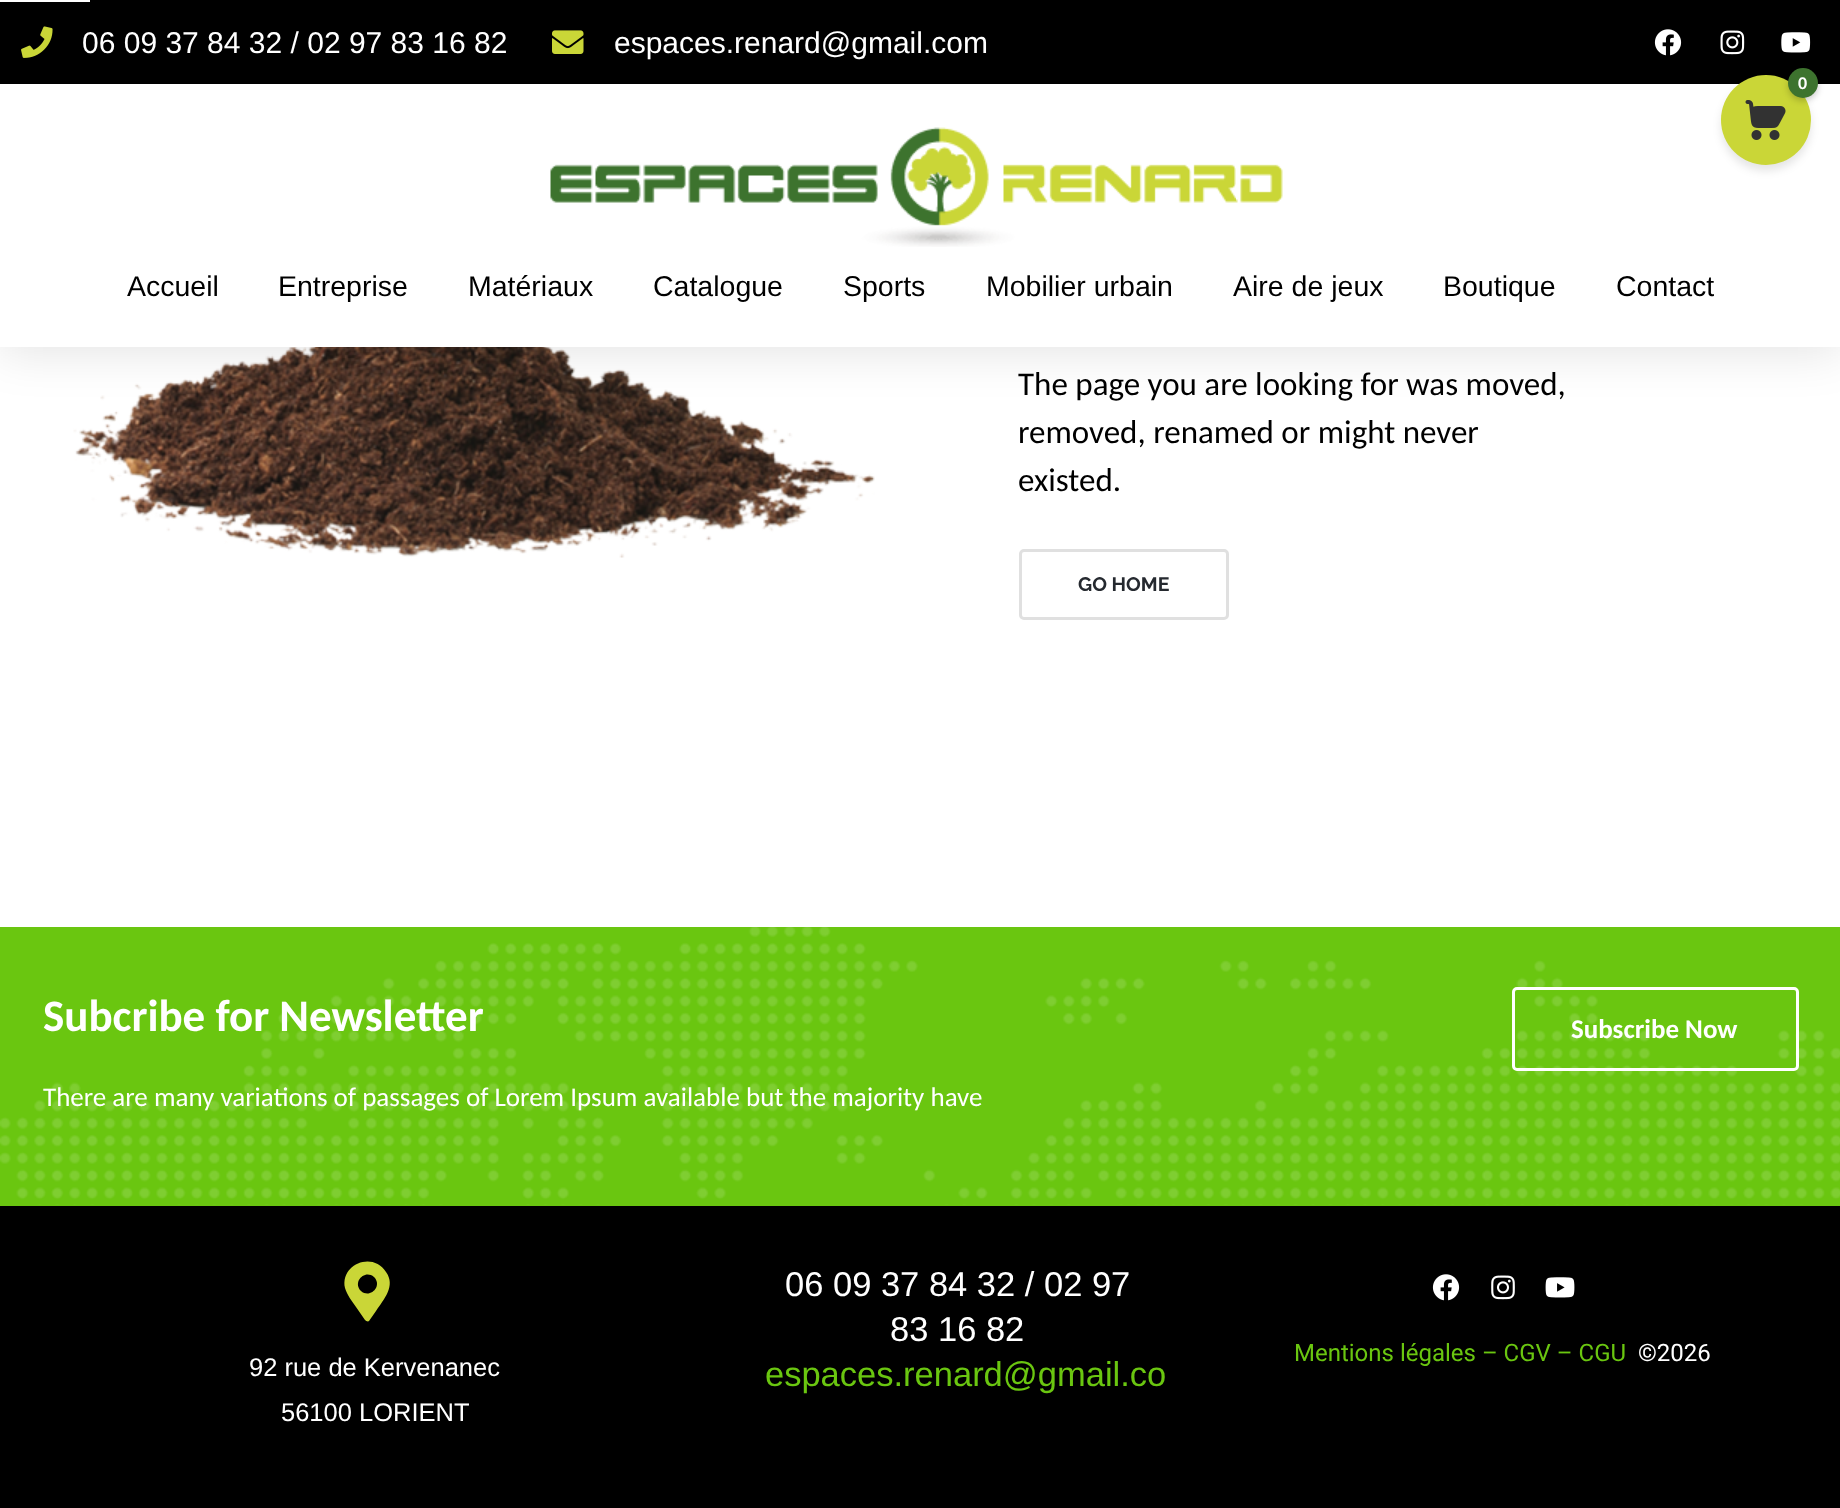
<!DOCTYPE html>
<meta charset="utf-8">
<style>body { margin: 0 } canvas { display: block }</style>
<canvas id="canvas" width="1840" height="1508"></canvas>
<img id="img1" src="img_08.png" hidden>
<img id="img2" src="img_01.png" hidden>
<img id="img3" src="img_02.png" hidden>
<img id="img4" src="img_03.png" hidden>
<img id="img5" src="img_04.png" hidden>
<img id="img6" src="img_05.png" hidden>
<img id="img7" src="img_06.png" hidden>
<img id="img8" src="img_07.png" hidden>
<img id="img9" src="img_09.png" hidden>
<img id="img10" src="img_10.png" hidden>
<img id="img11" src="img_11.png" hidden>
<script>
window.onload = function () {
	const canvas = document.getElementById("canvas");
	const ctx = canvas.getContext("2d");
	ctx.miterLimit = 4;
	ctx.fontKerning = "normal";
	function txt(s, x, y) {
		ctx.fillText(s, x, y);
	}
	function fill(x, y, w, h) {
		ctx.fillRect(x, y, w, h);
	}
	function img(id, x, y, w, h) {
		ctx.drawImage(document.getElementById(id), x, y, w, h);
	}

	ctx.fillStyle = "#FFFFFF";
	fill(0, 0, 1840, 1508);
	img("img1", 73, 347, 802, 211);
	ctx.fillStyle = "rgba(0, 0, 0, 0.1)";
	ctx.filter = "blur(22.5px)";
	ctx.beginPath();
	ctx.rect(0, 8, 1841, 346);
	ctx.fill();
	ctx.filter = "none";
	ctx.fillStyle = "#000000";
	fill(0, 0, 1840, 84);
	ctx.fillStyle = "#FFFFFF";
	fill(0, 0, 90, 2);
	img("img2", 21, 26, 32, 32);
	img("img3", 552, 30, 32, 24);
	img("img4", 1654, 29, 28, 27);
	img("img5", 1720, 30, 25, 25);
	img("img6", 1781, 32, 30, 21);
	fill(0, 84, 1840, 263);
	img("img7", 550, 127, 733, 120);
	ctx.fillStyle = "rgba(0, 0, 0, 0.1)";
	ctx.filter = "blur(4.5px)";
	ctx.beginPath();
	ctx.roundRect(1721, 81, 90, 90, 45);
	ctx.fill();
	ctx.filter = "none";
	ctx.fillStyle = "#CAD637";
	ctx.beginPath();
	ctx.arc(1766, 120, 45, 0, Math.PI * 2);
	ctx.fill();
	img("img8", 1745, 100, 41, 40);
	ctx.fillStyle = "rgba(0, 0, 0, 0.2)";
	ctx.filter = "blur(3px)";
	ctx.beginPath();
	ctx.roundRect(1788, 71, 30, 30, 15);
	ctx.fill();
	ctx.filter = "none";
	ctx.fillStyle = "#3D732E";
	ctx.beginPath();
	ctx.arc(1803, 83, 15, 0, Math.PI * 2);
	ctx.fill();
	ctx.beginPath();
	ctx.roundRect(1020.5, 550.5, 207, 68, 3.5);
	ctx.strokeStyle = "#E0E0E0";
	ctx.lineWidth = 3;
	ctx.stroke();
	ctx.fillStyle = "#6AC610";
	fill(0, 927, 1840, 279);
	img("img9", 0, 927, 1840, 278);
	ctx.beginPath();
	ctx.roundRect(1513.5, 988.5, 284, 81, 3.5);
	ctx.strokeStyle = "#FFFFFF";
	ctx.stroke();
	ctx.fillStyle = "#000000";
	fill(0, 1206, 1840, 302);
	img("img4", 1432, 1274, 28, 27);
	img("img10", 1491, 1275, 24, 25);
	img("img11", 1545, 1277, 30, 21);
	ctx.fillStyle = "#CAD637";
	ctx.beginPath();
	ctx.moveTo(365, 1320);
	ctx.lineTo(356, 1307);
	ctx.bezierCurveTo(352, 1301, 347, 1295, 345, 1288);
	ctx.bezierCurveTo(340, 1264, 373, 1251, 386, 1272);
	ctx.bezierCurveTo(396, 1286, 384, 1299, 376, 1311);
	ctx.lineTo(369, 1321);
	ctx.bezierCurveTo(368, 1322, 366, 1321, 365, 1320);
	ctx.closePath();
	ctx.moveTo(361, 1291);
	ctx.bezierCurveTo(370, 1299, 383, 1286, 374, 1277);
	ctx.bezierCurveTo(365, 1269, 352, 1282, 361, 1291);
	ctx.closePath();
	ctx.fill();
	ctx.font = "30px Liberation Sans";
	ctx.fillStyle = "#FFFFFF";
	txt("06 09 37 84 32 / 02 97 83 16 82", 82, 53);
	txt("espaces.renard@gmail.com", 614, 53);
	ctx.font = "28.5px Liberation Sans";
	ctx.fillStyle = "#000000";
	txt("Accueil", 127, 296);
	txt("Entreprise", 278, 296);
	txt("Matériaux", 468, 296);
	txt("Catalogue", 653, 296);
	txt("Sports", 843, 296);
	txt("Mobilier urbain", 986, 296);
	txt("Aire de jeux", 1233, 296);
	txt("Boutique", 1443, 296);
	txt("Contact", 1616, 296);
	ctx.font = "bold 18px Carlito";
	ctx.fillStyle = "#FFFFFF";
	txt("0", 1798, 89);
	ctx.font = "33px Carlito";
	ctx.fillStyle = "#000000";
	txt("The page you are looking for was moved,", 1018, 395);
	txt("removed, renamed or might never", 1018, 443);
	txt("existed.", 1018, 491);
	ctx.font = "bold 19.5px Raleway";
	ctx.fillStyle = "#25292F";
	txt("GO HOME", 1078, 591);
	ctx.font = "bold 45px Carlito";
	ctx.fillStyle = "#FFFFFF";
	txt("Subcribe for Newsletter", 43, 1031);
	ctx.font = "27px Carlito";
	txt("There are many variations of passages of Lorem Ipsum available but the majority have", 43, 1106);
	ctx.font = "bold 27px Carlito";
	txt("Subscribe Now", 1571, 1038);
	ctx.font = "34.5px Liberation Sans";
	txt("06 09 37 84 32 / 02 97", 785, 1296);
	txt("83 16 82", 890, 1341);
	ctx.fillStyle = "#6AC610";
	txt("espaces.renard@gmail.co", 765, 1386);
	ctx.font = "24px Roboto";
	txt("Mentions légales – CGV – CGU", 1294, 1361);
	ctx.fillStyle = "#FFFFFF";
	txt("©2026", 1638, 1361);
	ctx.font = "25.5px Liberation Sans";
	txt("92 rue de Kervenanec", 249, 1376);
	txt("56100 LORIENT", 281, 1421);
};
</script>
